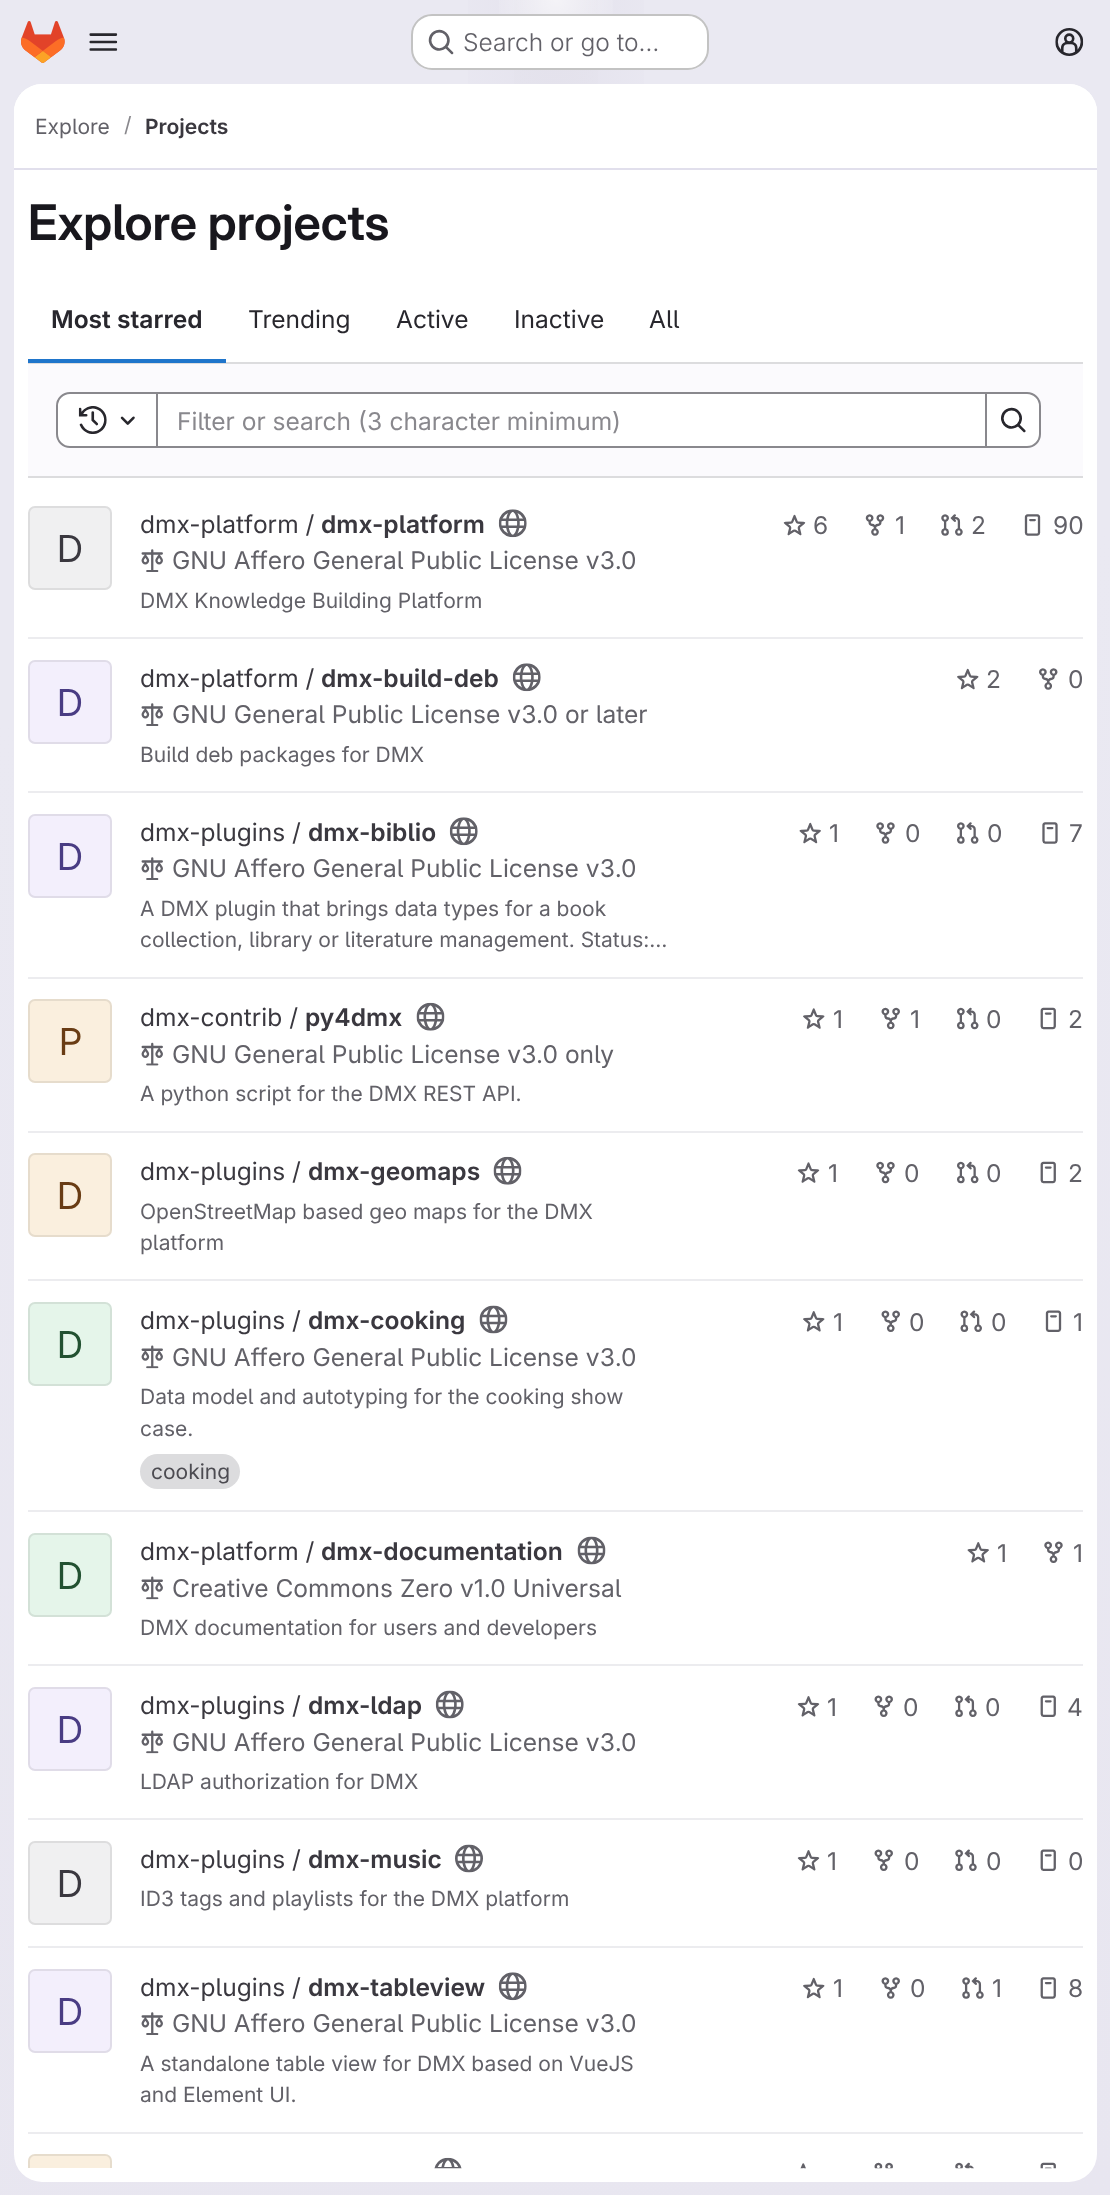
<!DOCTYPE html>
<meta charset="utf-8">
<style>body { margin: 0 } canvas { display: block }</style>
<canvas id="canvas" width="1110" height="2195"></canvas>
<img id="img1" src="img_01.png" hidden>
<img id="img2" src="img_02.png" hidden>
<img id="img3" src="img_03.png" hidden>
<img id="img4" src="img_04.png" hidden>
<img id="img5" src="img_05.png" hidden>
<img id="img6" src="img_06.png" hidden>
<img id="img7" src="img_07.png" hidden>
<img id="img8" src="img_08.png" hidden>
<img id="img9" src="img_09.png" hidden>
<img id="img10" src="img_10.png" hidden>
<img id="img11" src="img_11.png" hidden>
<img id="img12" src="img_12.png" hidden>
<img id="img13" src="img_13.png" hidden>
<img id="img14" src="img_14.png" hidden>
<img id="img15" src="img_15.png" hidden>
<img id="img16" src="img_16.png" hidden>
<img id="img17" src="img_17.png" hidden>
<img id="img18" src="img_18.png" hidden>
<img id="img19" src="img_19.png" hidden>
<img id="img20" src="img_20.png" hidden>
<img id="img21" src="img_21.png" hidden>
<img id="img22" src="img_22.png" hidden>
<img id="img23" src="img_23.png" hidden>
<img id="img24" src="img_24.png" hidden>
<img id="img25" src="img_25.png" hidden>
<img id="img26" src="img_26.png" hidden>
<img id="img27" src="img_27.png" hidden>
<img id="img28" src="img_28.png" hidden>
<img id="img29" src="img_29.png" hidden>
<img id="img30" src="img_30.png" hidden>
<img id="img31" src="img_31.png" hidden>
<img id="img32" src="img_32.png" hidden>
<img id="img33" src="img_33.png" hidden>
<img id="img34" src="img_34.png" hidden>
<img id="img35" src="img_35.png" hidden>
<img id="img36" src="img_36.png" hidden>
<img id="img37" src="img_37.png" hidden>
<img id="img38" src="img_38.png" hidden>
<img id="img39" src="img_39.png" hidden>
<img id="img40" src="img_40.png" hidden>
<img id="img41" src="img_41.png" hidden>
<img id="img42" src="img_42.png" hidden>
<img id="img43" src="img_43.png" hidden>
<img id="img44" src="img_44.png" hidden>
<img id="img45" src="img_45.png" hidden>
<img id="img46" src="img_46.png" hidden>
<img id="img47" src="img_47.png" hidden>
<img id="img48" src="img_48.png" hidden>
<img id="img49" src="img_49.png" hidden>
<img id="img50" src="img_50.png" hidden>
<img id="img51" src="img_51.png" hidden>
<script>
window.onload = function () {
	const canvas = document.getElementById("canvas");
	const ctx = canvas.getContext("2d");
	ctx.miterLimit = 4;
	ctx.fontKerning = "normal";
	function txt(s, x, y) {
		ctx.fillText(s, x, y);
	}
	function fill(x, y, w, h) {
		ctx.fillRect(x, y, w, h);
	}
	function round(x, y, w, h, r) {
		ctx.beginPath();
		ctx.roundRect(x, y, w, h, r);
		ctx.fill();
	}
	function img(id, x, y, w, h) {
		ctx.drawImage(document.getElementById(id), x, y, w, h);
	}
	let gradient;

	ctx.fillStyle = "#FFFFFF";
	fill(0, 0, 1110, 2195);
	gradient = ctx.createLinearGradient(760, 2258, 351, -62);
	gradient.addColorStop(0, "#E8E6F0");
	gradient.addColorStop(0.7, "#EAE9F2");
	ctx.fillStyle = gradient;
	fill(0, 0, 1110, 2195);
	gradient = ctx.createRadialGradient(556, 0, 0, 556, 0, 556);
	gradient.addColorStop(0, "#E4E2ED");
	gradient.addColorStop(0.22, "rgba(228, 226, 237, 0)");
	ctx.fillStyle = gradient;
	ctx.beginPath();
	ctx.rect(468, 0, 176, 84);
	ctx.save();
	ctx.clip();
	ctx.scale(1, 2196 / 556);
	ctx.fillRect(0, 0, 1110, 556);
	ctx.restore();
	gradient = ctx.createRadialGradient(556, 0, 0, 556, 0, 556);
	gradient.addColorStop(0, "#E4E2EC");
	gradient.addColorStop(0.16, "rgba(228, 226, 236, 0)");
	ctx.fillStyle = gradient;
	ctx.beginPath();
	ctx.rect(514, 0, 84, 84);
	ctx.save();
	ctx.clip();
	ctx.scale(1, 2196 / 556);
	ctx.fillRect(0, 0, 1110, 556);
	ctx.restore();
	gradient = ctx.createRadialGradient(556, 0, 0, 556, 0, 2265);
	gradient.addColorStop(0, "rgba(255, 255, 255, 0.6)");
	gradient.addColorStop(0.03, "rgba(255, 255, 255, 0)");
	ctx.fillStyle = gradient;
	fill(499, 0, 114, 14);
	img("img1", 21, 21, 44, 42);
	img("img2", 89, 33, 29, 18);
	ctx.fillStyle = "#FFFFFF";
	round(411, 14, 298, 56, 21);
	ctx.beginPath();
	ctx.roundRect(412, 15, 296, 54, 20);
	ctx.strokeStyle = "rgba(5, 5, 6, 0.24)";
	ctx.lineWidth = 2;
	ctx.stroke();
	img("img3", 428, 29, 26, 26);
	img("img4", 1055, 28, 29, 28);
	round(14, 84, 1083, 2098, 28);
	ctx.beginPath();
	ctx.roundRect(14, 84, 1083, 86, [28, 28, 0, 0]);
	ctx.fill();
	ctx.fillStyle = "#E1DFEC";
	fill(14, 168, 1083, 2);
	ctx.fillStyle = "#DCDCDE";
	fill(28, 362, 1055, 2);
	ctx.fillStyle = "#1F75CB";
	fill(28, 359, 198, 4);
	ctx.fillStyle = "#FBFAFD";
	fill(28, 364, 1055, 112);
	ctx.fillStyle = "#DCDCDE";
	fill(28, 476, 1055, 2);
	ctx.fillStyle = "#FFFFFF";
	ctx.beginPath();
	ctx.rect(157, 393, 829, 54);
	ctx.fill();
	ctx.strokeStyle = "#89888D";
	ctx.stroke();
	ctx.beginPath();
	ctx.roundRect(57, 393, 100, 54, [13, 0, 0, 13]);
	ctx.fill();
	ctx.stroke();
	img("img5", 78, 406, 29, 28);
	img("img6", 120, 416, 15, 9);
	ctx.beginPath();
	ctx.roundRect(986, 393, 54, 54, [0, 13, 13, 0]);
	ctx.fill();
	ctx.stroke();
	img("img7", 1001, 407, 25, 26);
	ctx.fillStyle = "#ECECEF";
	fill(28, 637, 1055, 2);
	img("img8", 498, 509, 29, 29);
	img("img9", 141, 549, 22, 23);
	img("img10", 783, 514, 23, 22);
	img("img11", 865, 514, 20, 22);
	img("img12", 941, 514, 22, 22);
	img("img13", 1024, 514, 17, 22);
	ctx.fillStyle = "#F0F0F1";
	round(28, 506, 84, 84, 7);
	ctx.beginPath();
	ctx.roundRect(29, 507, 82, 82, 6);
	ctx.strokeStyle = "rgba(5, 5, 6, 0.08)";
	ctx.stroke();
	ctx.fillStyle = "#ECECEF";
	fill(28, 791, 1055, 2);
	img("img14", 512, 663, 29, 29);
	img("img9", 141, 703, 22, 23);
	img("img15", 957, 668, 22, 22);
	img("img16", 1039, 668, 19, 22);
	ctx.fillStyle = "#F3EFFC";
	round(28, 660, 84, 84, 7);
	ctx.beginPath();
	ctx.roundRect(29, 661, 82, 82, 6);
	ctx.stroke();
	ctx.fillStyle = "#ECECEF";
	fill(28, 977, 1055, 2);
	img("img14", 449, 817, 29, 29);
	img("img9", 141, 857, 22, 23);
	img("img17", 799, 822, 22, 22);
	img("img18", 876, 822, 19, 22);
	img("img19", 957, 822, 22, 22);
	img("img20", 1042, 822, 16, 22);
	ctx.fillStyle = "#F3EFFC";
	round(28, 814, 84, 84, 7);
	ctx.beginPath();
	ctx.roundRect(29, 815, 82, 82, 6);
	ctx.stroke();
	ctx.fillStyle = "#ECECEF";
	fill(28, 1131, 1055, 2);
	img("img21", 416, 1002, 29, 29);
	img("img22", 141, 1042, 22, 24);
	img("img23", 803, 1008, 22, 21);
	img("img24", 881, 1007, 19, 23);
	img("img25", 957, 1007, 22, 23);
	img("img26", 1040, 1007, 16, 23);
	ctx.fillStyle = "#FAEFDE";
	round(28, 999, 84, 84, 7);
	ctx.beginPath();
	ctx.roundRect(29, 1000, 82, 82, 6);
	ctx.stroke();
	ctx.fillStyle = "#ECECEF";
	fill(28, 1279, 1055, 2);
	img("img27", 493, 1156, 29, 29);
	img("img28", 797, 1162, 23, 21);
	img("img29", 876, 1161, 19, 23);
	img("img25", 957, 1161, 22, 23);
	img("img30", 1040, 1161, 16, 23);
	ctx.fillStyle = "#FAEFDE";
	round(28, 1153, 84, 84, 7);
	ctx.beginPath();
	ctx.roundRect(29, 1154, 82, 82, 6);
	ctx.stroke();
	ctx.fillStyle = "#ECECEF";
	fill(28, 1510, 1055, 2);
	img("img31", 479, 1305, 29, 29);
	img("img32", 141, 1345, 22, 24);
	ctx.fillStyle = "#DCDCDE";
	round(140, 1454, 100, 35, 17.5);
	img("img33", 803, 1311, 22, 21);
	img("img34", 881, 1310, 19, 22);
	img("img35", 960, 1310, 22, 22);
	img("img36", 1045, 1310, 17, 22);
	ctx.fillStyle = "#E5F5EA";
	round(28, 1302, 84, 84, 7);
	ctx.beginPath();
	ctx.roundRect(29, 1303, 82, 82, 6);
	ctx.stroke();
	ctx.fillStyle = "#ECECEF";
	fill(28, 1664, 1055, 2);
	img("img31", 577, 1536, 29, 29);
	img("img32", 141, 1576, 22, 24);
	img("img37", 967, 1542, 22, 21);
	img("img38", 1044, 1541, 19, 22);
	ctx.fillStyle = "#E5F5EA";
	round(28, 1533, 84, 84, 7);
	ctx.beginPath();
	ctx.roundRect(29, 1534, 82, 82, 6);
	ctx.stroke();
	ctx.fillStyle = "#ECECEF";
	fill(28, 1818, 1055, 2);
	img("img39", 435, 1690, 29, 29);
	img("img32", 141, 1730, 22, 24);
	img("img40", 797, 1696, 23, 21);
	img("img34", 874, 1695, 19, 22);
	img("img41", 955, 1695, 22, 22);
	img("img42", 1040, 1695, 16, 22);
	ctx.fillStyle = "#F3EFFC";
	round(28, 1687, 84, 84, 7);
	ctx.beginPath();
	ctx.roundRect(29, 1688, 82, 82, 6);
	ctx.stroke();
	ctx.fillStyle = "#ECECEF";
	fill(28, 1946, 1055, 2);
	img("img43", 455, 1844, 28, 29);
	img("img40", 797, 1850, 23, 21);
	img("img34", 874, 1849, 19, 22);
	img("img41", 955, 1849, 22, 22);
	img("img42", 1040, 1849, 16, 22);
	ctx.fillStyle = "#F0F0F1";
	round(28, 1841, 84, 84, 7);
	ctx.beginPath();
	ctx.roundRect(29, 1842, 82, 82, 6);
	ctx.stroke();
	ctx.fillStyle = "#ECECEF";
	fill(28, 2132, 1055, 2);
	img("img8", 498, 1972, 29, 29);
	img("img44", 141, 2012, 22, 23);
	img("img15", 803, 1977, 22, 22);
	img("img45", 881, 1977, 19, 22);
	img("img12", 962, 1977, 22, 22);
	img("img46", 1040, 1977, 16, 22);
	ctx.fillStyle = "#F3EFFC";
	round(28, 1969, 84, 84, 7);
	ctx.beginPath();
	ctx.roundRect(29, 1970, 82, 82, 6);
	ctx.stroke();
	ctx.fillStyle = "#FAEFDE";
	ctx.beginPath();
	ctx.roundRect(28, 2154, 84, 14, [7, 7, 0, 0]);
	ctx.fill();
	ctx.save();
	ctx.beginPath();
	ctx.rect(14, 170, 1083, 1998);
	ctx.clip();
	ctx.fillStyle = "rgba(5, 5, 6, 0.08)";
	ctx.beginPath();
	ctx.moveTo(35, 2154);
	ctx.bezierCurveTo(31, 2154, 28, 2157, 28, 2161);
	ctx.lineTo(28, 2178);
	ctx.lineTo(30, 2179);
	ctx.lineTo(30, 2161);
	ctx.bezierCurveTo(30, 2158, 32, 2156, 35, 2156);
	ctx.lineTo(105, 2156);
	ctx.bezierCurveTo(108, 2156, 110, 2158, 110, 2161);
	ctx.lineTo(110, 2182);
	ctx.lineTo(112, 2182);
	ctx.lineTo(112, 2161);
	ctx.bezierCurveTo(112, 2157, 109, 2154, 105, 2154);
	ctx.closePath();
	ctx.fill();
	ctx.restore();
	img("img47", 434, 2157, 28, 12);
	img("img48", 800, 2163, 6, 6);
	img("img49", 874, 2162, 19, 7);
	img("img50", 955, 2162, 19, 7);
	img("img51", 1040, 2162, 16, 7);
	ctx.font = "300 24.5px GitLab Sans";
	ctx.fillStyle = "#626168";
	txt("Search or go to…", 463, 51);
	ctx.font = "21px GitLab Sans";
	txt("Explore", 35, 134);
	ctx.fillStyle = "#89888D";
	txt("/", 124, 132);
	ctx.font = "600 21px 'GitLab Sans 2'";
	ctx.fillStyle = "#3A383F";
	txt("Projects", 145, 134);
	ctx.font = "600 49px GitLab Sans";
	ctx.fillStyle = "#18171D";
	txt("Explore projects", 28, 240);
	ctx.font = "600 24.5px 'GitLab Sans 2'";
	ctx.fillStyle = "#28272D";
	txt("Most starred", 51, 328);
	ctx.font = "24.5px GitLab Sans";
	txt("Trending", 248, 328);
	txt("Active", 396, 328);
	txt("Inactive", 514, 328);
	txt("All", 649, 328);
	ctx.fillStyle = "#89888D";
	txt("Filter or search (3 character minimum)", 177, 430);
	ctx.fillStyle = "#3A383F";
	txt("dmx-platform /", 140, 533);
	ctx.font = "600 24.5px 'GitLab Sans 2'";
	txt("dmx-platform", 321, 533);
	ctx.font = "24.5px GitLab Sans";
	ctx.fillStyle = "#626168";
	txt("GNU Affero General Public License v3.0", 172, 569);
	ctx.font = "21px GitLab Sans";
	txt("DMX Knowledge Building Platform", 140, 608);
	ctx.font = "24.5px GitLab Sans";
	txt("6", 813, 534);
	txt("1", 895, 534);
	txt("2", 971, 534);
	txt("90", 1053, 534);
	ctx.font = "37px 'GitLab Sans 2'";
	ctx.fillStyle = "#3A383F";
	txt("D", 57, 562);
	ctx.font = "24.5px GitLab Sans";
	txt("dmx-platform /", 140, 687);
	ctx.font = "600 24.5px 'GitLab Sans 2'";
	txt("dmx-build-deb", 321, 687);
	ctx.font = "24.5px GitLab Sans";
	ctx.fillStyle = "#626168";
	txt("GNU General Public License v3.0 or later", 172, 723);
	ctx.font = "21px GitLab Sans";
	txt("Build deb packages for DMX", 140, 762);
	ctx.font = "24.5px GitLab Sans";
	txt("2", 986, 688);
	txt("0", 1068, 688);
	ctx.font = "37px 'GitLab Sans 2'";
	ctx.fillStyle = "#493C83";
	txt("D", 57, 716);
	ctx.font = "24.5px GitLab Sans";
	ctx.fillStyle = "#3A383F";
	txt("dmx-plugins /", 140, 841);
	ctx.font = "600 24.5px 'GitLab Sans 2'";
	txt("dmx-biblio", 308, 841);
	ctx.font = "24.5px GitLab Sans";
	ctx.fillStyle = "#626168";
	txt("GNU Affero General Public License v3.0", 172, 877);
	ctx.font = "21px GitLab Sans";
	txt("A DMX plugin that brings data types for a book", 140, 916);
	txt("collection, library or literature management. Status:…", 140, 947);
	ctx.font = "24.5px GitLab Sans";
	txt("1", 829, 842);
	txt("0", 905, 842);
	txt("0", 987, 842);
	txt("7", 1069, 842);
	ctx.font = "37px 'GitLab Sans 2'";
	ctx.fillStyle = "#493C83";
	txt("D", 57, 870);
	ctx.font = "24.5px GitLab Sans";
	ctx.fillStyle = "#3A383F";
	txt("dmx-contrib /", 140, 1026);
	ctx.font = "600 24.5px 'GitLab Sans 2'";
	txt("py4dmx", 305, 1026);
	ctx.font = "24.5px GitLab Sans";
	ctx.fillStyle = "#626168";
	txt("GNU General Public License v3.0 only", 172, 1063);
	ctx.font = "21px GitLab Sans";
	txt("A python script for the DMX REST API.", 140, 1101);
	ctx.font = "24.5px GitLab Sans";
	txt("1", 833, 1028);
	txt("1", 910, 1028);
	txt("0", 986, 1028);
	txt("2", 1068, 1028);
	ctx.font = "37px 'GitLab Sans 2'";
	ctx.fillStyle = "#693C14";
	txt("P", 59, 1055);
	ctx.font = "24.5px GitLab Sans";
	ctx.fillStyle = "#3A383F";
	txt("dmx-plugins /", 140, 1180);
	ctx.font = "600 24.5px 'GitLab Sans 2'";
	txt("dmx-geomaps", 308, 1180);
	ctx.font = "21px GitLab Sans";
	ctx.fillStyle = "#626168";
	txt("OpenStreetMap based geo maps for the DMX", 140, 1219);
	txt("platform", 140, 1250);
	ctx.font = "24.5px GitLab Sans";
	txt("1", 828, 1182);
	txt("0", 904, 1182);
	txt("0", 986, 1182);
	txt("2", 1068, 1182);
	ctx.font = "37px 'GitLab Sans 2'";
	ctx.fillStyle = "#693C14";
	txt("D", 57, 1209);
	ctx.font = "24.5px GitLab Sans";
	ctx.fillStyle = "#3A383F";
	txt("dmx-plugins /", 140, 1329);
	ctx.font = "600 24.5px 'GitLab Sans 2'";
	txt("dmx-cooking", 308, 1329);
	ctx.font = "24.5px GitLab Sans";
	ctx.fillStyle = "#626168";
	txt("GNU Affero General Public License v3.0", 172, 1366);
	ctx.font = "21px GitLab Sans";
	txt("Data model and autotyping for the cooking show", 140, 1404);
	txt("case.", 140, 1436);
	ctx.fillStyle = "#4C4B51";
	txt("cooking", 151, 1479);
	ctx.font = "24.5px GitLab Sans";
	ctx.fillStyle = "#626168";
	txt("1", 833, 1331);
	txt("0", 909, 1331);
	txt("0", 991, 1331);
	txt("1", 1073, 1331);
	ctx.font = "37px 'GitLab Sans 2'";
	ctx.fillStyle = "#225131";
	txt("D", 57, 1358);
	ctx.font = "24.5px GitLab Sans";
	ctx.fillStyle = "#3A383F";
	txt("dmx-platform /", 140, 1560);
	ctx.font = "600 24.5px 'GitLab Sans 2'";
	txt("dmx-documentation", 321, 1560);
	ctx.font = "24.5px GitLab Sans";
	ctx.fillStyle = "#626168";
	txt("Creative Commons Zero v1.0 Universal", 172, 1597);
	ctx.font = "21px GitLab Sans";
	txt("DMX documentation for users and developers", 140, 1635);
	ctx.font = "24.5px GitLab Sans";
	txt("1", 997, 1562);
	txt("1", 1073, 1562);
	ctx.font = "37px 'GitLab Sans 2'";
	ctx.fillStyle = "#225131";
	txt("D", 57, 1589);
	ctx.font = "24.5px GitLab Sans";
	ctx.fillStyle = "#3A383F";
	txt("dmx-plugins /", 140, 1714);
	ctx.font = "600 24.5px 'GitLab Sans 2'";
	txt("dmx-ldap", 308, 1714);
	ctx.font = "24.5px GitLab Sans";
	ctx.fillStyle = "#626168";
	txt("GNU Affero General Public License v3.0", 172, 1751);
	ctx.font = "21px GitLab Sans";
	txt("LDAP authorization for DMX", 140, 1789);
	ctx.font = "24.5px GitLab Sans";
	txt("1", 827, 1716);
	txt("0", 903, 1716);
	txt("0", 985, 1716);
	txt("4", 1067, 1716);
	ctx.font = "37px 'GitLab Sans 2'";
	ctx.fillStyle = "#493C83";
	txt("D", 57, 1743);
	ctx.font = "24.5px GitLab Sans";
	ctx.fillStyle = "#3A383F";
	txt("dmx-plugins /", 140, 1868);
	ctx.font = "600 24.5px 'GitLab Sans 2'";
	txt("dmx-music", 308, 1868);
	ctx.font = "21px GitLab Sans";
	ctx.fillStyle = "#626168";
	txt("ID3 tags and playlists for the DMX platform", 140, 1906);
	ctx.font = "24.5px GitLab Sans";
	txt("1", 827, 1870);
	txt("0", 904, 1870);
	txt("0", 986, 1870);
	txt("0", 1068, 1870);
	ctx.font = "37px 'GitLab Sans 2'";
	ctx.fillStyle = "#3A383F";
	txt("D", 57, 1897);
	ctx.font = "24.5px GitLab Sans";
	txt("dmx-plugins /", 140, 1996);
	ctx.font = "600 24.5px 'GitLab Sans 2'";
	txt("dmx-tableview", 308, 1996);
	ctx.font = "24.5px GitLab Sans";
	ctx.fillStyle = "#626168";
	txt("GNU Affero General Public License v3.0", 172, 2032);
	ctx.font = "21px GitLab Sans";
	txt("A standalone table view for DMX based on VueJS", 140, 2071);
	txt("and Element UI.", 140, 2102);
	ctx.font = "24.5px GitLab Sans";
	txt("1", 833, 1997);
	txt("0", 910, 1997);
	txt("1", 992, 1997);
	txt("8", 1068, 1997);
	ctx.font = "37px 'GitLab Sans 2'";
	ctx.fillStyle = "#493C83";
	txt("D", 57, 2025);
};
</script>
